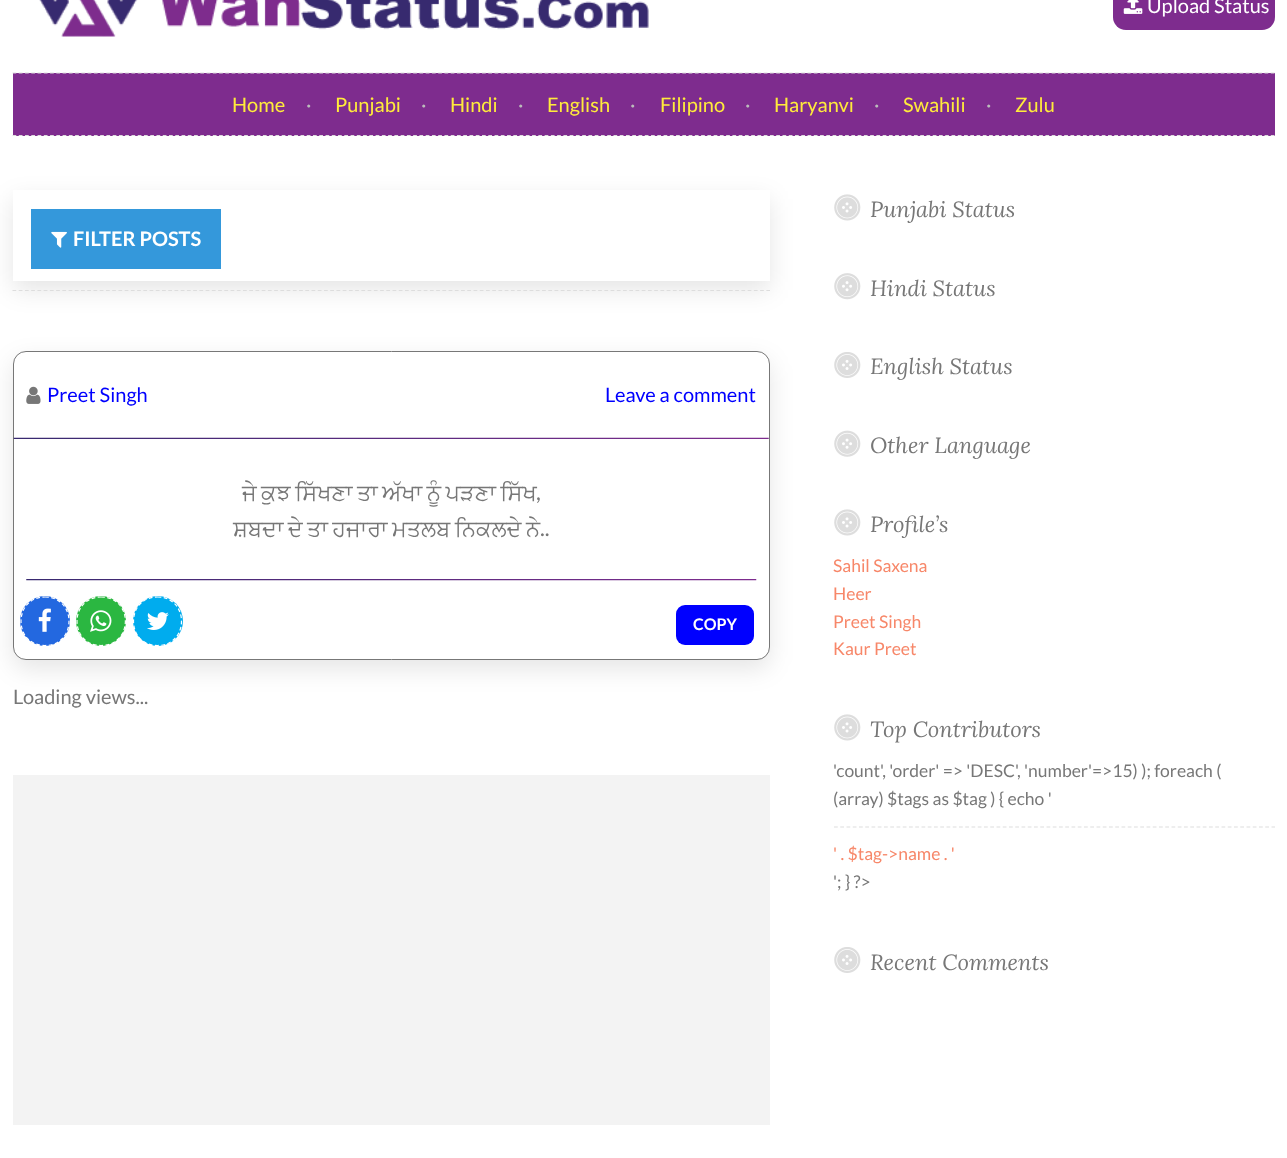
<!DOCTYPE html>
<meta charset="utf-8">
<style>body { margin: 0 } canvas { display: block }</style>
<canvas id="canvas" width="1287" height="1158"></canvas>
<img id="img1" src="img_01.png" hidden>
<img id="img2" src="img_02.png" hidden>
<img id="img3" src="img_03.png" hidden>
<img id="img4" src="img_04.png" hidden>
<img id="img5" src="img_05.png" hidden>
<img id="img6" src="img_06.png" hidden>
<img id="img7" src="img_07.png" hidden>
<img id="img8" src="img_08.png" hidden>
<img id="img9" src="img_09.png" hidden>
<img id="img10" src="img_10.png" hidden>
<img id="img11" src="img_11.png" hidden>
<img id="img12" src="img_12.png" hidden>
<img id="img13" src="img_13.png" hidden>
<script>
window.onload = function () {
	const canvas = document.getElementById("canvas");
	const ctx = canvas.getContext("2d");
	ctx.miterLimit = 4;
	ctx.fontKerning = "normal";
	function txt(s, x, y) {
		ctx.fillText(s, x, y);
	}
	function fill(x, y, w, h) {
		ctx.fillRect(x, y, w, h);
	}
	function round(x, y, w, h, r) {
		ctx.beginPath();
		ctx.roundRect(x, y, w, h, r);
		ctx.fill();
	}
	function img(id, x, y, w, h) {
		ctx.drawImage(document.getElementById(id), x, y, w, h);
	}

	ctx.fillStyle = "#FFFFFF";
	fill(0, 0, 1287, 1158);
	img("img1", 39, 0, 610, 37);
	ctx.fillStyle = "#7E2C8E";
	round(1113, -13, 162, 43, 13);
	img("img2", 1123, 0, 20, 14);
	fill(13, 73, 1262, 63);
	ctx.beginPath();
	ctx.moveTo(12.5, 73);
	ctx.lineTo(1275, 73);
	ctx.strokeStyle = "#DDDDDD";
	ctx.lineWidth = 1.2;
	ctx.setLineDash([3.75, 2.51]);
	ctx.stroke();
	ctx.beginPath();
	ctx.moveTo(12.5, 135.5);
	ctx.lineTo(1275, 135.5);
	ctx.stroke();
	ctx.save();
	ctx.beginPath();
	ctx.moveTo(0, 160);
	ctx.lineTo(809, 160);
	ctx.lineTo(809, 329);
	ctx.lineTo(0, 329);
	ctx.closePath();
	ctx.moveTo(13, 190);
	ctx.lineTo(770, 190);
	ctx.lineTo(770, 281);
	ctx.lineTo(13, 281);
	ctx.closePath();
	ctx.clip("evenodd");
	ctx.fillStyle = "rgba(0, 0, 0, 0.1)";
	ctx.filter = "blur(12.5px)";
	ctx.beginPath();
	ctx.rect(13, 199, 757, 91);
	ctx.fill();
	ctx.filter = "none";
	ctx.restore();
	ctx.fillStyle = "#3498DB";
	fill(31, 209, 190, 60);
	img("img3", 51, 231, 16, 17);
	ctx.beginPath();
	ctx.moveTo(12.5, 290.5);
	ctx.lineTo(770, 290.5);
	ctx.setLineDash([3.75, 2.48]);
	ctx.stroke();
	ctx.fillStyle = "rgba(0, 0, 0, 0.1)";
	ctx.filter = "blur(12.5px)";
	ctx.beginPath();
	ctx.roundRect(13, 360, 757, 309, 13);
	ctx.fill();
	ctx.filter = "none";
	ctx.fillStyle = "#FFFFFF";
	ctx.beginPath();
	ctx.roundRect(13.5, 351.5, 756, 308, 12.5);
	ctx.fill();
	ctx.strokeStyle = "#777777";
	ctx.lineWidth = 1;
	ctx.setLineDash([]);
	ctx.stroke();
	img("img4", 13, 437, 756, 2);
	img("img5", 26, 386, 15, 18);
	img("img6", 26, 579, 731, 2);
	ctx.fillStyle = "#2368E0";
	ctx.beginPath();
	ctx.arc(45, 621, 25, 0, Math.PI * 2);
	ctx.fill();
	ctx.beginPath();
	ctx.moveTo(45, 597);
	ctx.bezierCurveTo(77, 597, 77, 645.5, 45, 645.5);
	ctx.bezierCurveTo(13, 645.5, 13, 597, 45, 597);
	ctx.closePath();
	ctx.strokeStyle = "#FFFFFF";
	ctx.lineWidth = 1.2;
	ctx.setLineDash([3.75, 2.5]);
	ctx.stroke();
	img("img7", 38, 608, 13, 24);
	ctx.fillStyle = "#2BB741";
	ctx.beginPath();
	ctx.arc(101, 621, 25, 0, Math.PI * 2);
	ctx.fill();
	ctx.beginPath();
	ctx.moveTo(101, 597);
	ctx.bezierCurveTo(133.5, 597, 133.5, 645.5, 101, 645.5);
	ctx.bezierCurveTo(69, 645.5, 69, 597, 101, 597);
	ctx.closePath();
	ctx.stroke();
	img("img8", 90, 610, 22, 22);
	ctx.fillStyle = "#00ACEE";
	ctx.beginPath();
	ctx.arc(158, 621, 25, 0, Math.PI * 2);
	ctx.fill();
	ctx.beginPath();
	ctx.moveTo(157.5, 597);
	ctx.bezierCurveTo(189.5, 597, 189.5, 645.5, 157.5, 645.5);
	ctx.bezierCurveTo(125.5, 645.5, 125.5, 597, 157.5, 597);
	ctx.closePath();
	ctx.stroke();
	img("img9", 147, 612, 22, 18);
	ctx.fillStyle = "#0000FF";
	round(676, 605, 78, 40, 9);
	ctx.fillStyle = "#F3F3F3";
	fill(13, 775, 757, 350);
	img("img10", 834, 194, 27, 27);
	img("img11", 834, 273, 27, 27);
	img("img12", 834, 352, 27, 26);
	img("img13", 834, 430, 27, 27);
	img("img10", 834, 509, 27, 27);
	img("img10", 834, 714, 27, 27);
	ctx.beginPath();
	ctx.moveTo(834, 827);
	ctx.lineTo(1275, 827);
	ctx.strokeStyle = "#DDDDDD";
	ctx.stroke();
	img("img12", 834, 947, 27, 26);
	ctx.font = "20px Lato";
	ctx.fillStyle = "#FFFFFF";
	txt("Upload Status", 1147, 13);
	ctx.fillStyle = "#FFEB3B";
	txt("Home", 232, 112);
	ctx.fillStyle = "#BBBBBB";
	txt("·", 306, 112);
	ctx.fillStyle = "#FFEB3B";
	txt("Punjabi", 335, 112);
	ctx.fillStyle = "#BBBBBB";
	txt("·", 421, 112);
	ctx.fillStyle = "#FFEB3B";
	txt("Hindi", 450, 112);
	ctx.fillStyle = "#BBBBBB";
	txt("·", 518, 112);
	ctx.fillStyle = "#FFEB3B";
	txt("English", 547, 112);
	ctx.fillStyle = "#BBBBBB";
	txt("·", 630, 112);
	ctx.fillStyle = "#FFEB3B";
	txt("Filipino", 660, 112);
	ctx.fillStyle = "#BBBBBB";
	txt("·", 745, 112);
	ctx.fillStyle = "#FFEB3B";
	txt("Haryanvi", 774, 112);
	ctx.fillStyle = "#BBBBBB";
	txt("·", 874, 112);
	ctx.fillStyle = "#FFEB3B";
	txt("Swahili", 903, 112);
	ctx.fillStyle = "#BBBBBB";
	txt("·", 986, 112);
	ctx.fillStyle = "#FFEB3B";
	txt("Zulu", 1015, 112);
	ctx.font = "bold 20px Lato";
	ctx.fillStyle = "#FFFFFF";
	txt("FILTER POSTS", 73, 246);
	ctx.font = "20px Lato";
	ctx.fillStyle = "#0000FF";
	txt("Preet Singh", 47, 402);
	txt("Leave a comment", 605, 402);
	ctx.wordSpacing = "-1.25px";
	ctx.font = "22.5px FreeSans";
	ctx.fillStyle = "#777777";
	txt("ਜੇ ਕੁਝ ਸਿੱਖਣਾ ਤਾ ਅੱਖਾ ਨੂੰ ਪੜਣਾ ਸਿੱਖ", 242, 500);
	ctx.wordSpacing = "0px";
	ctx.font = "22.5px Lato";
	txt(",", 536, 500);
	ctx.wordSpacing = "-1.25px";
	ctx.font = "22.5px FreeSans";
	txt("ਸ਼ਬਦਾ ਦੇ ਤਾ ਹਜਾਰਾ ਮਤਲਬ ਨਿਕਲਦੇ ਨੇ", 233, 536);
	ctx.wordSpacing = "0px";
	ctx.font = "22.5px Lato";
	txt("..", 540, 536);
	ctx.font = "bold 16px Lato";
	ctx.fillStyle = "#FFFFFF";
	txt("COPY", 693, 630);
	ctx.font = "20px Lato";
	ctx.fillStyle = "#777777";
	txt("Loading views...", 13, 704);
	ctx.font = "italic 22px Lora";
	txt("Punjabi Status", 870, 217);
	txt("Hindi Status", 870, 296);
	txt("English Status", 870, 374);
	txt("Other Language", 870, 453);
	txt("Profile’s", 870, 532);
	ctx.font = "17.5px Lato";
	ctx.fillStyle = "#F78769";
	txt("Sahil Saxena", 833, 572);
	txt("Heer", 833, 600);
	txt("Preet Singh", 833, 628);
	txt("Kaur Preet", 833, 655);
	ctx.font = "italic 22px Lora";
	ctx.fillStyle = "#777777";
	txt("Top Contributors", 870, 737);
	ctx.font = "17.5px Lato";
	txt("'count', 'order' => 'DESC', 'number'=>15) ); foreach (", 833, 777);
	txt("(array) $tags as $tag ) { echo '", 833, 805);
	ctx.fillStyle = "#F78769";
	txt("' . $tag->name . '", 833, 860);
	ctx.fillStyle = "#777777";
	txt("'; } ?>", 833, 888);
	ctx.font = "italic 22px Lora";
	txt("Recent Comments", 870, 970);
};
</script>
